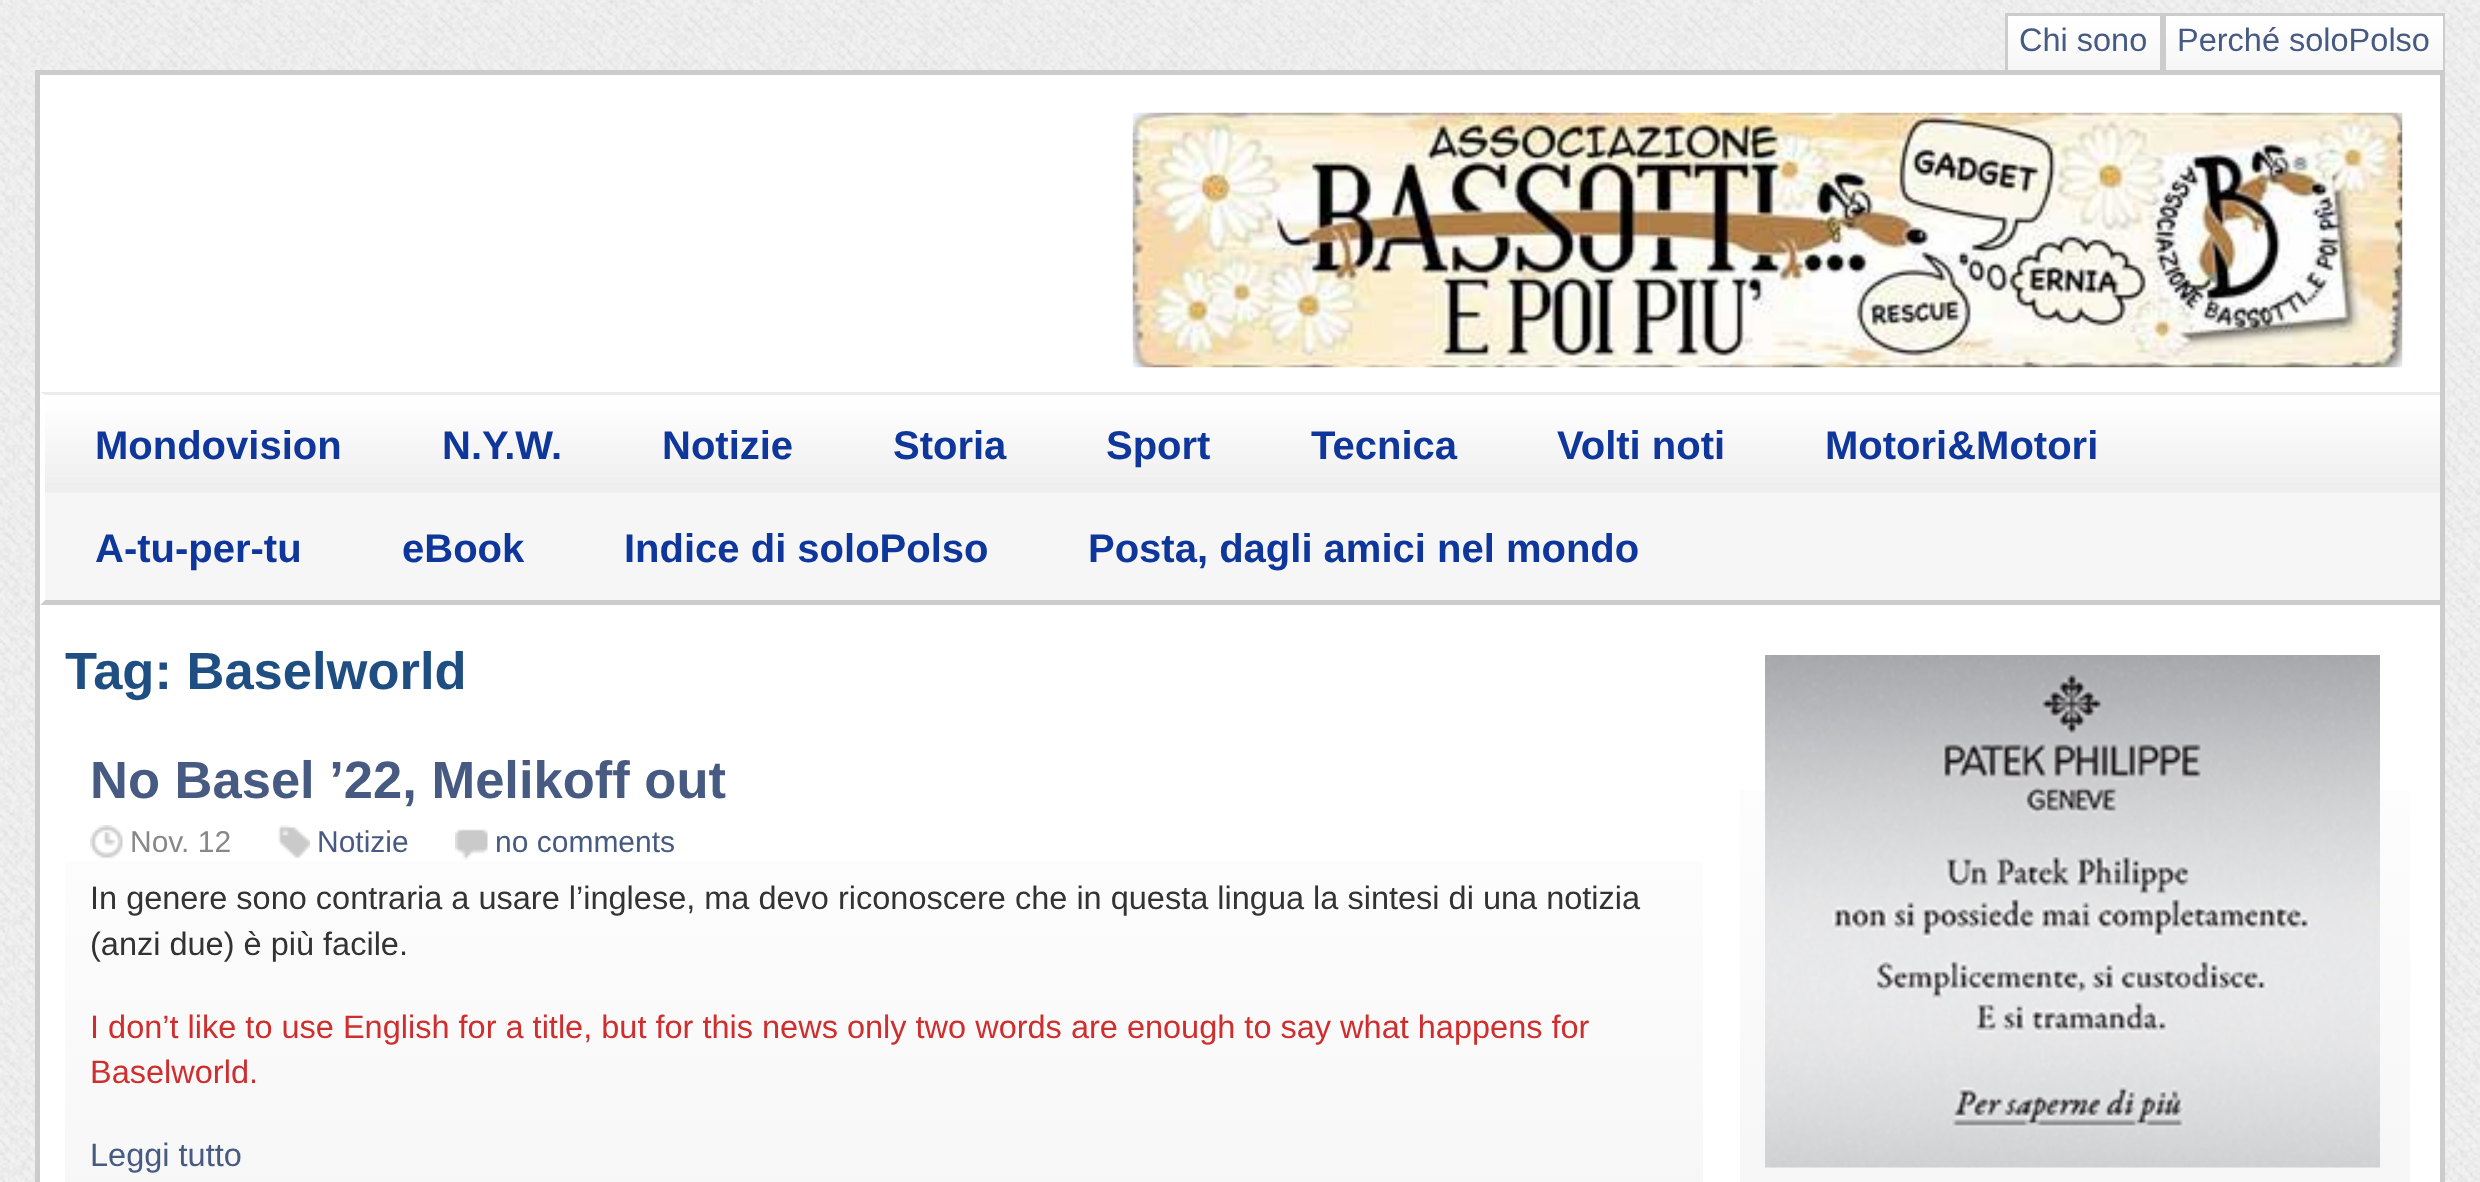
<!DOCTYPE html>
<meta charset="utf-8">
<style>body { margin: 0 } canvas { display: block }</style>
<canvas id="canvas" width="2480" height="1182"></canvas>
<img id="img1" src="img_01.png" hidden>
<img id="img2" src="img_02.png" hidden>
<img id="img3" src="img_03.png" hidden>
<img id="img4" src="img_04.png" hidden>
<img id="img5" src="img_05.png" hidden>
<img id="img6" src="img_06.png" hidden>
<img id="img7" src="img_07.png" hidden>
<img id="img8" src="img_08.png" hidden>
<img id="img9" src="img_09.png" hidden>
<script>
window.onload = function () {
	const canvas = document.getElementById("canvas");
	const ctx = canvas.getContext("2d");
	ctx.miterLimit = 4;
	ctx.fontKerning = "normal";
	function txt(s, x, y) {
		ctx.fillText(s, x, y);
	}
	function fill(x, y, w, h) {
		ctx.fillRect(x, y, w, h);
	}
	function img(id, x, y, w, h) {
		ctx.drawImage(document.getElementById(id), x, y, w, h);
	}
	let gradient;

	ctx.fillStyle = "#FFFFFF";
	fill(0, 0, 2480, 1182);
	img("img1", 0, 0, 2480, 1182);
	img("img2", 2008, 16, 152, 54);
	ctx.fillStyle = "#CCCCCC";
	fill(2005, 13, 440, 3);
	fill(2005, 13, 3, 57);
	img("img3", 2166, 16, 277, 54);
	fill(2443, 13, 2, 57);
	fill(2160, 13, 6, 57);
	ctx.fillStyle = "#FFFFFF";
	ctx.beginPath();
	ctx.rect(37.5, 72.5, 2405, 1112);
	ctx.fill();
	ctx.strokeStyle = "#CCCCCC";
	ctx.lineWidth = 5;
	ctx.stroke();
	img("img4", 1132, 112, 1271, 256);
	ctx.fillStyle = "#F6F6F6";
	fill(45, 491, 2395, 109);
	img("img5", 45, 395, 2395, 98);
	ctx.save();
	ctx.beginPath();
	ctx.rect(40, 75, 2400, 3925);
	ctx.clip();
	ctx.fillStyle = "#ECECEC";
	ctx.beginPath();
	ctx.moveTo(40, 392);
	ctx.lineTo(2450, 392);
	ctx.lineTo(2445, 395);
	ctx.lineTo(45, 395);
	ctx.closePath();
	ctx.fill();
	ctx.fillStyle = "#CCCCCC";
	ctx.beginPath();
	ctx.moveTo(2450, 605);
	ctx.lineTo(40, 605);
	ctx.lineTo(45, 600);
	ctx.lineTo(2445, 600);
	ctx.closePath();
	ctx.fill();
	ctx.restore();
	ctx.fillStyle = "#FFFFFF";
	ctx.beginPath();
	ctx.moveTo(40, 605);
	ctx.lineTo(40, 392);
	ctx.lineTo(45, 395);
	ctx.lineTo(45, 600);
	ctx.closePath();
	ctx.fill();
	gradient = ctx.createLinearGradient(884, 712, 884, 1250);
	gradient.addColorStop(0, "#FFFFFF");
	gradient.addColorStop(1, "#F6F6F6");
	ctx.fillStyle = gradient;
	fill(65, 861, 1638, 321);
	img("img6", 90, 825, 33, 34);
	img("img7", 278, 825, 32, 34);
	img("img8", 455, 829, 33, 31);
	gradient = ctx.createLinearGradient(2075, 630, 2075, 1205);
	gradient.addColorStop(0, "#FFFFFF");
	gradient.addColorStop(1, "#F6F6F6");
	ctx.fillStyle = gradient;
	fill(1740, 790, 670, 392);
	img("img9", 1765, 655, 615, 513);
	ctx.font = "32.5px Liberation Sans";
	ctx.fillStyle = "#475A81";
	txt("Chi sono", 2019, 51);
	txt("Perché soloPolso", 2177, 51);
	ctx.font = "bold 40px Liberation Sans";
	ctx.fillStyle = "#0F369B";
	txt("Mondovision", 95, 459);
	txt("N.Y.W.", 442, 459);
	txt("Notizie", 662, 459);
	txt("Storia", 893, 459);
	txt("Sport", 1106, 459);
	txt("Tecnica", 1311, 459);
	txt("Volti noti", 1557, 459);
	txt("Motori&Motori", 1825, 459);
	txt("A-tu-per-tu", 95, 562);
	txt("eBook", 402, 562);
	txt("Indice di soloPolso", 624, 562);
	txt("Posta, dagli amici nel mondo", 1088, 562);
	ctx.font = "bold 52.5px Liberation Sans";
	ctx.fillStyle = "#1F4F82";
	txt("Tag: Baselworld", 65, 689);
	ctx.fillStyle = "#475A81";
	txt("No Basel ’22, Melikoff out", 90, 798);
	ctx.font = "30px Liberation Sans";
	ctx.fillStyle = "#888888";
	txt("Nov. 12", 130, 852);
	ctx.fillStyle = "#475A81";
	txt("Notizie", 317, 852);
	txt("no comments", 495, 852);
	ctx.font = "32.5px Liberation Sans";
	ctx.fillStyle = "#333333";
	txt("In genere sono contraria a usare l’inglese, ma devo riconoscere che in questa lingua la sintesi di una notizia", 90, 909);
	txt("(anzi due) è più facile.", 90, 955);
	ctx.fillStyle = "#CF2E2E";
	txt("I don’t like to use English for a title, but for this news only two words are enough to say what happens for", 90, 1038);
	txt("Baselworld.", 90, 1083);
	ctx.fillStyle = "#475A81";
	txt("Leggi tutto", 90, 1166);
};
</script>
